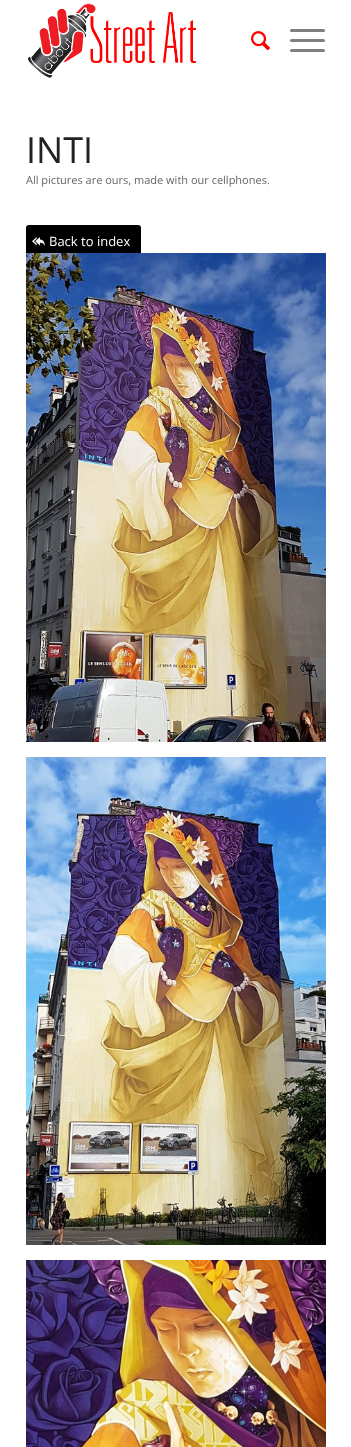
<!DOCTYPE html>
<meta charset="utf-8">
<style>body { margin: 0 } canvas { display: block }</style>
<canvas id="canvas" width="351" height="1447"></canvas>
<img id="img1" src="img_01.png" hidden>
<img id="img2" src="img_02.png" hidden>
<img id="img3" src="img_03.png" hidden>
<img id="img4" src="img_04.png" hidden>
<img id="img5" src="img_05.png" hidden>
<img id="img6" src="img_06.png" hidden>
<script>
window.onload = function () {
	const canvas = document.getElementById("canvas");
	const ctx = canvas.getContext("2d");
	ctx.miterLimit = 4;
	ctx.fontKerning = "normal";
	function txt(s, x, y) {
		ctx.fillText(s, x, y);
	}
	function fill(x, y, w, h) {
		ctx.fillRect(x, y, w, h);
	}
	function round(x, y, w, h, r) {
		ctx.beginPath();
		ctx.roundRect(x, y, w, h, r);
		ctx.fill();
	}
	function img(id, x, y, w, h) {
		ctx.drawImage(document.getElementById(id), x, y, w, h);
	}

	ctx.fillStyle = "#FFFFFF";
	fill(0, 0, 351, 1447);
	img("img1", 28, 3, 168, 75);
	img("img2", 251, 31, 19, 20);
	ctx.fillStyle = "#808080";
	round(290, 39, 35, 3, 1.5);
	round(290, 29, 35, 3, 1.5);
	round(290, 49, 35, 3, 1.5);
	ctx.fillStyle = "#000000";
	round(26, 225, 115, 33, 3);
	img("img3", 32, 237, 13, 9);
	img("img4", 26, 253, 300, 489);
	img("img5", 26, 757, 300, 488);
	img("img6", 26, 1260, 300, 187);
	ctx.font = "36px Open Sans";
	ctx.fillStyle = "#222222";
	txt("INTI", 26, 163);
	ctx.font = "11px Open Sans";
	ctx.fillStyle = "#666666";
	txt("All pictures are ours, made with our cellphones.", 26, 184);
	ctx.font = "13px Open Sans";
	ctx.fillStyle = "#FFFFFF";
	txt("Back to index", 49, 246);
};
</script>
